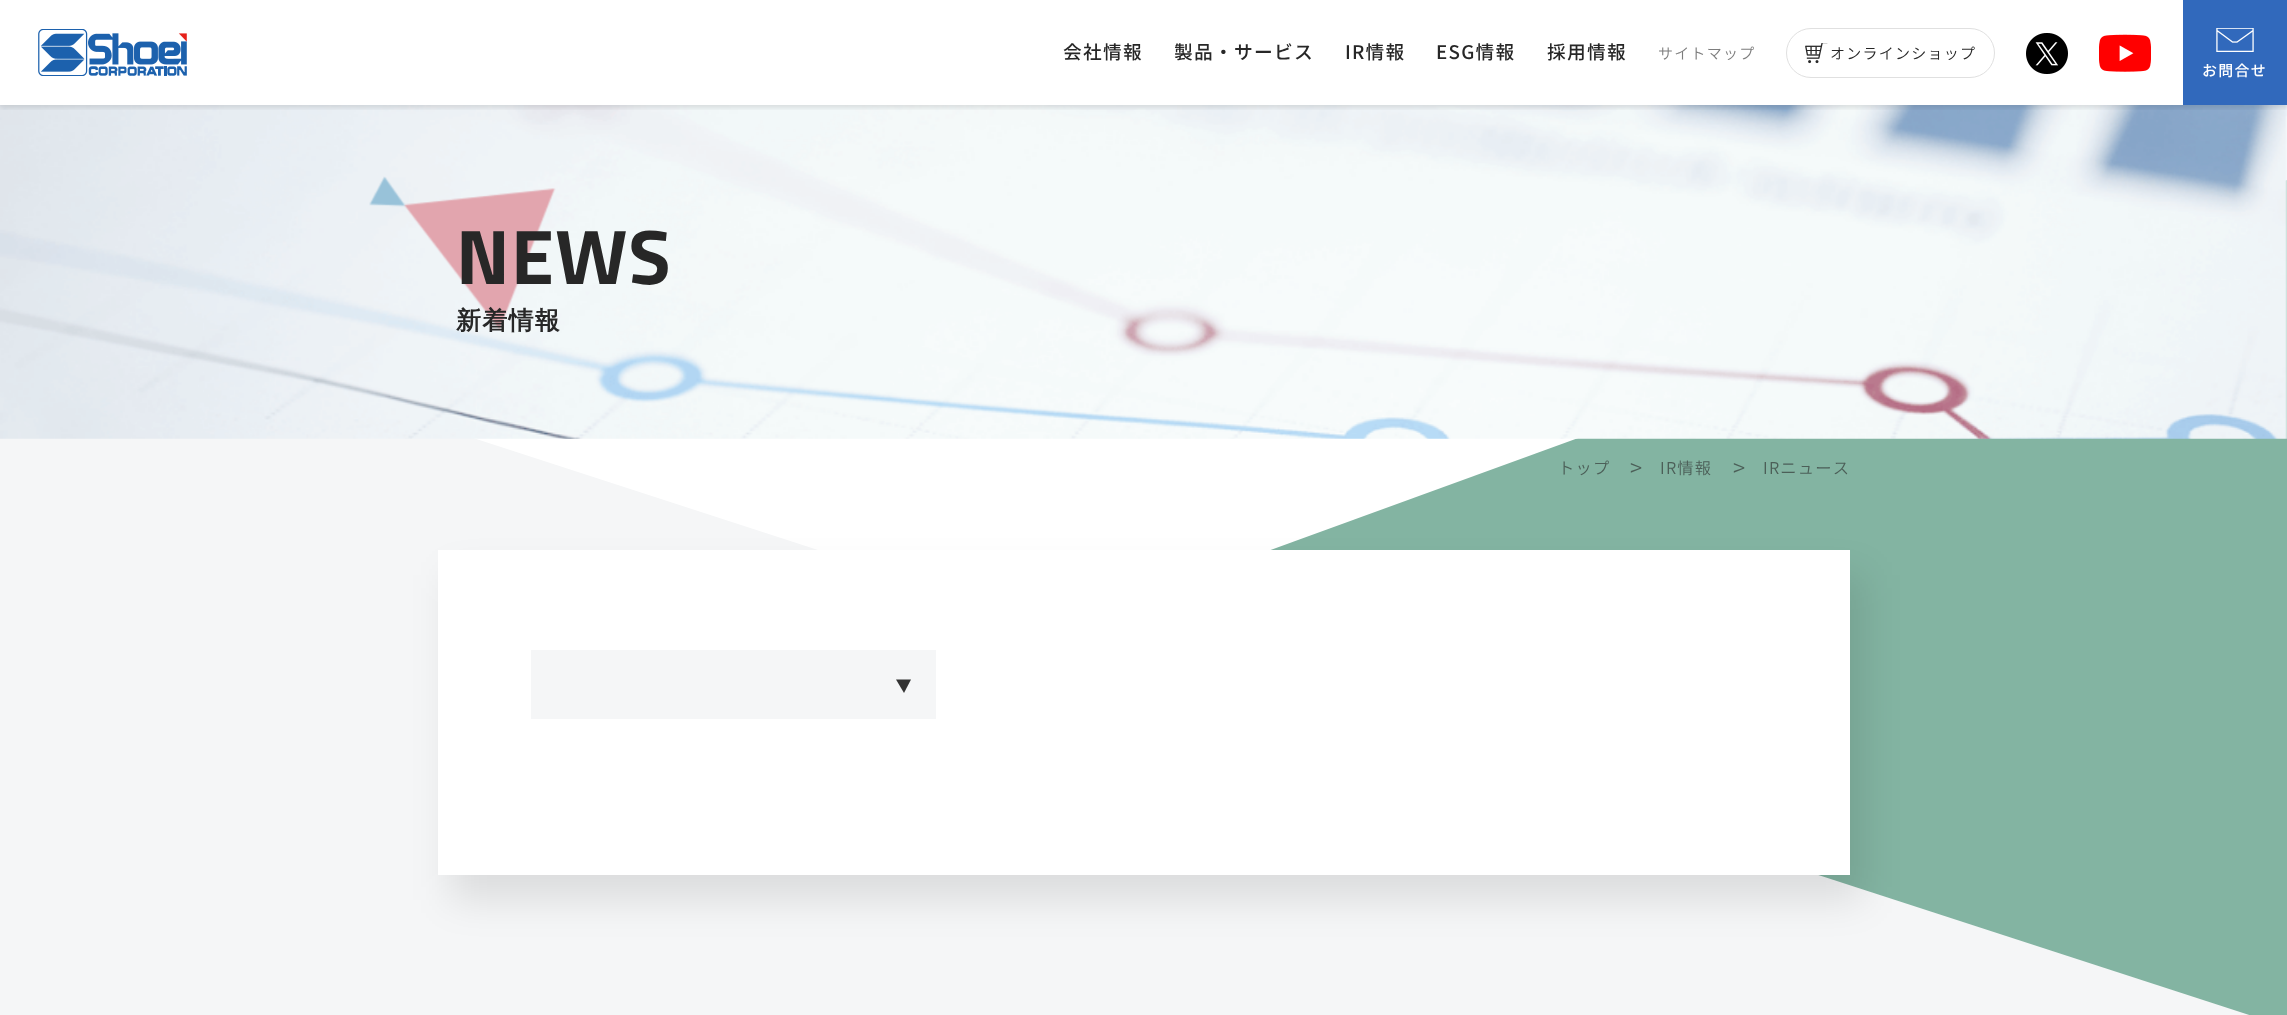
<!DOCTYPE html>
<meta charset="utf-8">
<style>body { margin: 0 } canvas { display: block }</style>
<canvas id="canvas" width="2287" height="1015"></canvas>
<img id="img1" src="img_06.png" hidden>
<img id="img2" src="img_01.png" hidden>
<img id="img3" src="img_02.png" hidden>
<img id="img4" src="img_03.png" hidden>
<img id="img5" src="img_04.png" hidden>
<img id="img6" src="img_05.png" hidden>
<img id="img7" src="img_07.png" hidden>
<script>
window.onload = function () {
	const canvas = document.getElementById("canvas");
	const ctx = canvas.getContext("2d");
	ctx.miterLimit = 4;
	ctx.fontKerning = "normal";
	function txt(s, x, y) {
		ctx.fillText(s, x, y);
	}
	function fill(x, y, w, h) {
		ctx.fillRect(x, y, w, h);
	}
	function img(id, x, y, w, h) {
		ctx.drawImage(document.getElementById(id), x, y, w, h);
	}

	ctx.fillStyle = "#FFFFFF";
	fill(0, 0, 2287, 1015);
	ctx.fillStyle = "#83B4A2";
	ctx.beginPath();
	ctx.moveTo(-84, 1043);
	ctx.lineTo(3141, -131);
	ctx.lineTo(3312, 339);
	ctx.lineTo(88, 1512);
	ctx.closePath();
	ctx.fill();
	fill(1650, 712, 637, 303);
	ctx.fillStyle = "#F5F6F7";
	ctx.beginPath();
	ctx.moveTo(-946, -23);
	ctx.lineTo(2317, 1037);
	ctx.lineTo(2162, 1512);
	ctx.lineTo(-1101, 452);
	ctx.closePath();
	ctx.fill();
	img("img1", 0, 105, 2287, 334);
	ctx.save();
	ctx.beginPath();
	ctx.rect(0, 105, 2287, 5);
	ctx.clip();
	ctx.fillStyle = "rgba(1, 1, 1, 0.1)";
	ctx.filter = "blur(2.5px)";
	ctx.beginPath();
	ctx.rect(0, 3, 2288, 105);
	ctx.fill();
	ctx.filter = "none";
	ctx.restore();
	img("img2", 38, 29, 149, 47);
	ctx.beginPath();
	ctx.roundRect(1786.5, 28.5, 208, 49, 24.5);
	ctx.strokeStyle = "#E0E0E0";
	ctx.stroke();
	img("img3", 1805, 43, 23, 21);
	img("img4", 2026, 33, 42, 41);
	img("img5", 2099, 34, 52, 38);
	ctx.fillStyle = "#3169BC";
	fill(2183, 0, 104, 105);
	img("img6", 2216, 28, 38, 24);
	ctx.fillStyle = "#F5F6F7";
	fill(0, 810, 632, 205);
	img("img7", 369, 176, 187, 154);
	ctx.fillStyle = "rgba(0, 0, 0, 0.1)";
	ctx.filter = "blur(19px)";
	ctx.beginPath();
	ctx.rect(450, 575, 1413, 325);
	ctx.fill();
	ctx.filter = "none";
	ctx.fillStyle = "#FFFFFF";
	fill(438, 550, 1412, 325);
	ctx.fillStyle = "#F5F6F7";
	fill(531, 650, 405, 69);
	ctx.fillStyle = "#333333";
	ctx.beginPath();
	ctx.moveTo(896, 679.5);
	ctx.lineTo(911, 679.5);
	ctx.lineTo(904, 693);
	ctx.closePath();
	ctx.fill();
	ctx.letterSpacing = "1.25px";
	ctx.font = "500 18.75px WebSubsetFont";
	ctx.fillStyle = "#272727";
	txt("会社情報", 1063, 59);
	txt("製品・サービス", 1174, 59);
	txt("IR情報", 1345, 59);
	txt("ESG情報", 1436, 59);
	txt("採用情報", 1547, 59);
	ctx.font = "300 15px WebSubsetFont";
	ctx.fillStyle = "#7D7D7D";
	txt("サイトマップ", 1658, 59);
	ctx.fillStyle = "#272727";
	txt("オンラインショップ", 1830, 59);
	ctx.font = "500 15px WebSubsetFont";
	ctx.fillStyle = "#FFFFFF";
	txt("お問合せ", 2202, 76);
	ctx.font = "bold 77.5px Sunflower";
	ctx.fillStyle = "#272727";
	txt("NEWS", 456, 284);
	ctx.font = "bold 25px WenQuanYi Zen Hei";
	txt("新着情報", 456, 329);
	ctx.font = "300 16.25px WebSubsetFont";
	ctx.fillStyle = "#4C5F58";
	txt("トップ", 1558, 474);
	ctx.font = "300 22px WebSubsetFont";
	txt(">", 1630, 476);
	ctx.font = "300 16.25px WebSubsetFont";
	txt("IR情報", 1660, 474);
	ctx.font = "300 22px WebSubsetFont";
	txt(">", 1733, 476);
	ctx.font = "300 16.25px WebSubsetFont";
	txt("IRニュース", 1763, 474);
};
</script>
